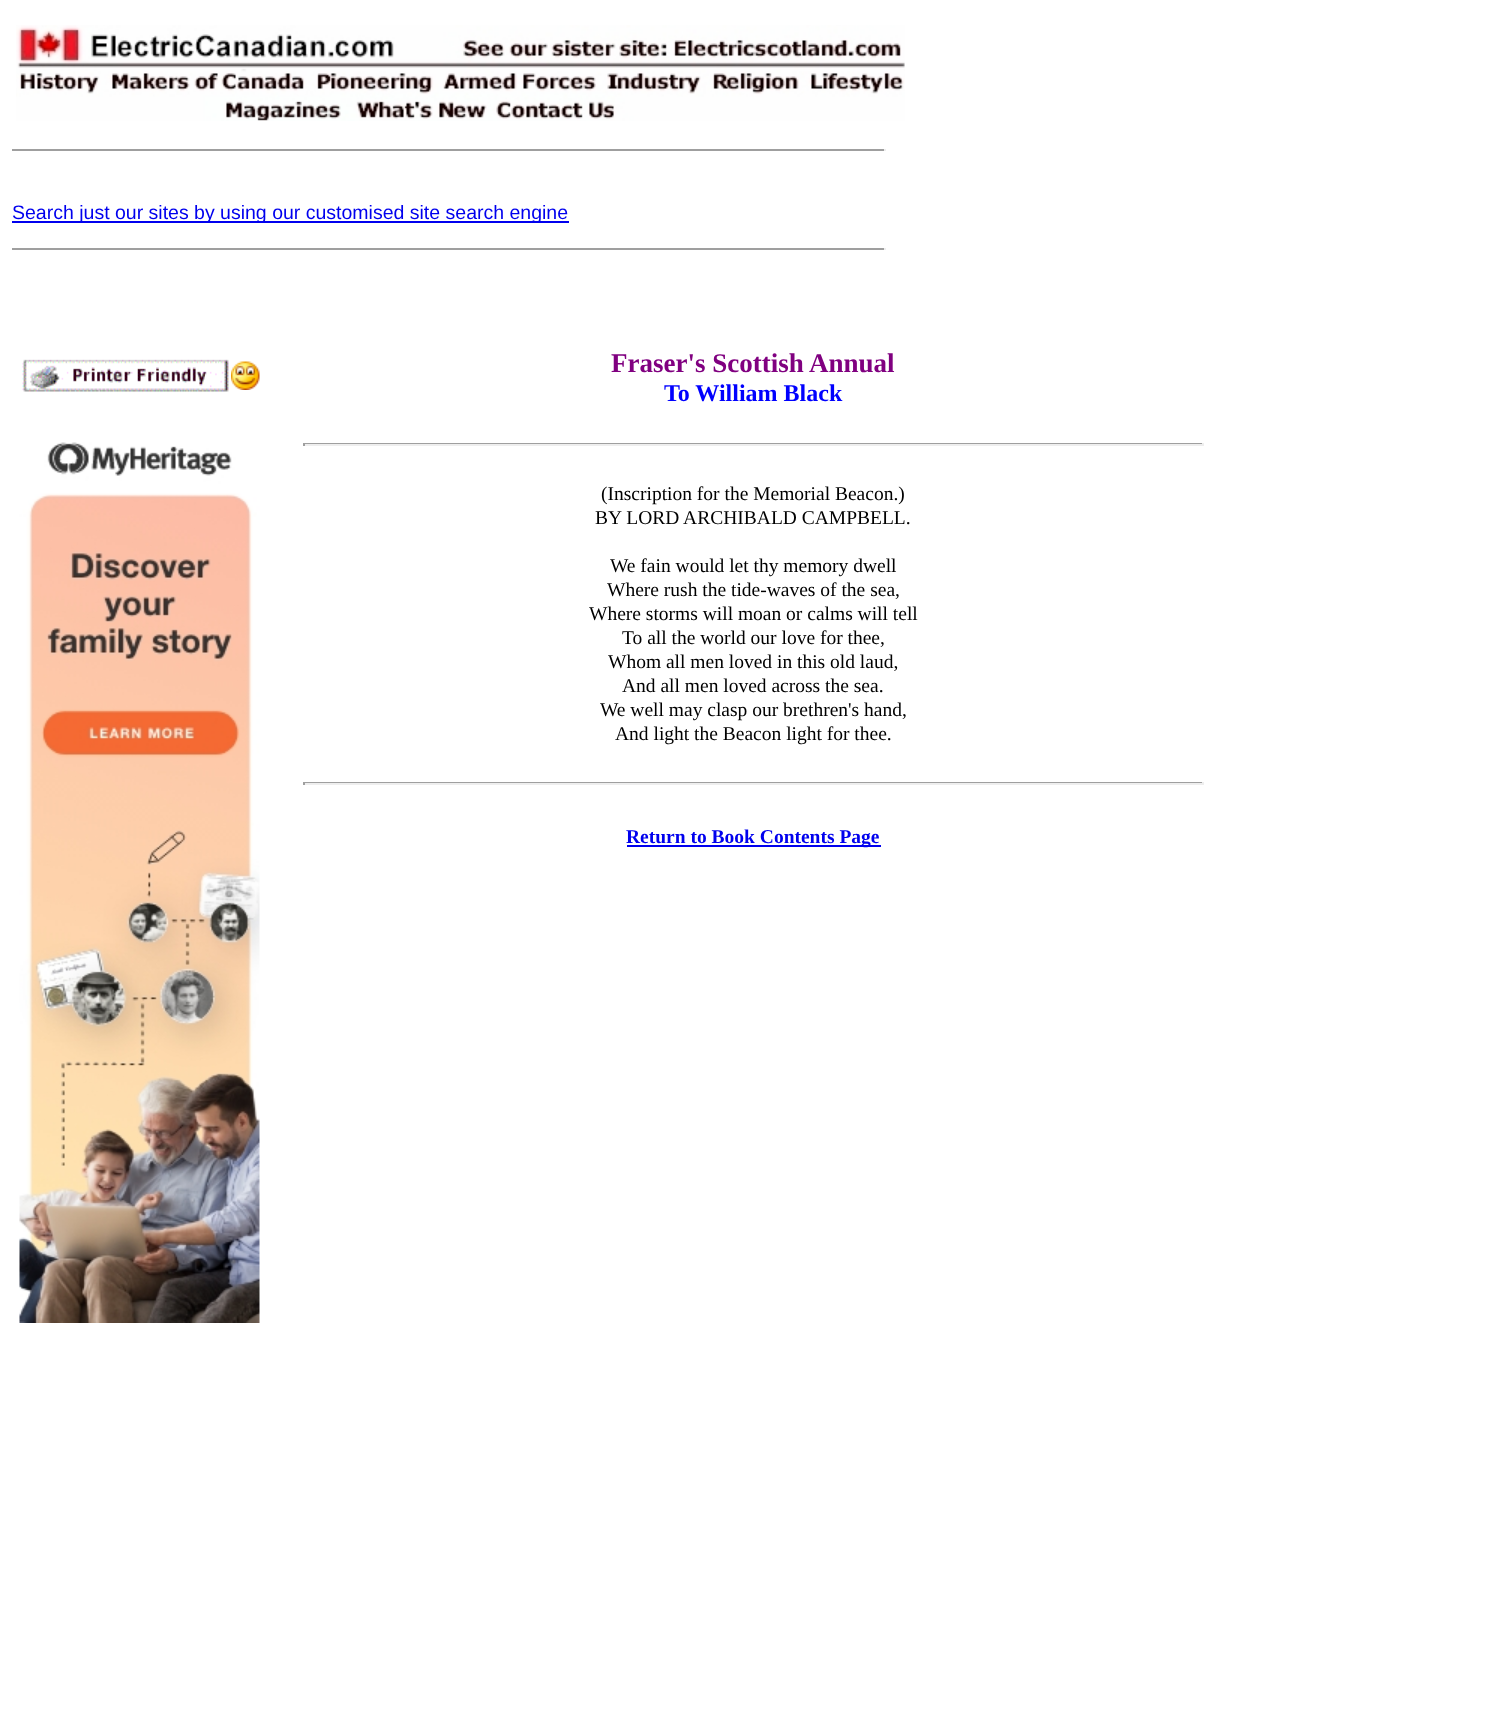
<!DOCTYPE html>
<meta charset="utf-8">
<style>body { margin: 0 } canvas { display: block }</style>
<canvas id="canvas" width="1508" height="1730"></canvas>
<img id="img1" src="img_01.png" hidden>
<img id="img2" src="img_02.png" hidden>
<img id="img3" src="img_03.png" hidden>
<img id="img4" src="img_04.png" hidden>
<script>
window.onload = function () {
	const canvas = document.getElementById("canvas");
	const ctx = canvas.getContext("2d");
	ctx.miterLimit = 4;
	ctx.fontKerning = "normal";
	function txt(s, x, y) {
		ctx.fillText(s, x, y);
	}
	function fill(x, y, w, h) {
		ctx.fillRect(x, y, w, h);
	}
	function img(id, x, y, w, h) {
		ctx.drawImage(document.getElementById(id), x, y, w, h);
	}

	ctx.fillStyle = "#FFFFFF";
	fill(0, 0, 1508, 1730);
	img("img1", 16, 25, 889, 96);
	ctx.fillStyle = "#9F9F9F";
	fill(12, 149, 873, 2);
	ctx.fillStyle = "#EEEEEE";
	fill(884, 149, 2, 2);
	ctx.fillStyle = "#0000EE";
	fill(12, 221, 557, 2);
	ctx.fillStyle = "#9F9F9F";
	fill(12, 248, 873, 2);
	ctx.fillStyle = "#EEEEEE";
	fill(884, 248, 2, 2);
	img("img2", 22, 359, 207, 33);
	img("img3", 231, 361, 29, 29);
	img("img4", 19, 442, 241, 881);
	ctx.fillStyle = "#9F9F9F";
	fill(303, 443, 900, 1);
	ctx.fillStyle = "#EEEEEE";
	fill(1202, 443, 2, 3);
	fill(303, 444, 900, 2);
	ctx.fillStyle = "#9F9F9F";
	fill(303, 443, 2, 3);
	fill(303, 782, 900, 1);
	ctx.fillStyle = "#EEEEEE";
	fill(1202, 782, 2, 3);
	fill(303, 783, 900, 2);
	ctx.fillStyle = "#9F9F9F";
	fill(303, 782, 2, 3);
	ctx.fillStyle = "#0000EE";
	fill(627, 845, 254, 2);
	ctx.font = "19.5px Liberation Sans";
	txt("Search just our sites by using our customised site search engine", 12, 219);
	ctx.font = "bold 27px Liberation Serif";
	ctx.fillStyle = "#800080";
	txt("Fraser's Scottish Annual", 611, 372);
	ctx.font = "bold 24px Liberation Serif";
	ctx.fillStyle = "#0000FF";
	txt("To William Black", 664, 401);
	ctx.font = "19.5px Liberation Serif";
	ctx.fillStyle = "#000000";
	txt("(Inscription for the Memorial Beacon.)", 601, 500);
	txt("BY LORD ARCHIBALD CAMPBELL.", 595, 524);
	txt("We fain would let thy memory dwell", 610, 572);
	txt("Where rush the tide-waves of the sea,", 607, 596);
	txt("Where storms will moan or calms will tell", 589, 620);
	txt("To all the world our love for thee,", 622, 644);
	txt("Whom all men loved in this old laud,", 608, 668);
	txt("And all men loved across the sea.", 622, 692);
	txt("We well may clasp our brethren's hand,", 600, 716);
	txt("And light the Beacon light for thee.", 615, 740);
	ctx.font = "bold 19.5px Liberation Serif";
	ctx.fillStyle = "#0000EE";
	txt("Return to Book Contents Page", 626, 843);
};
</script>
